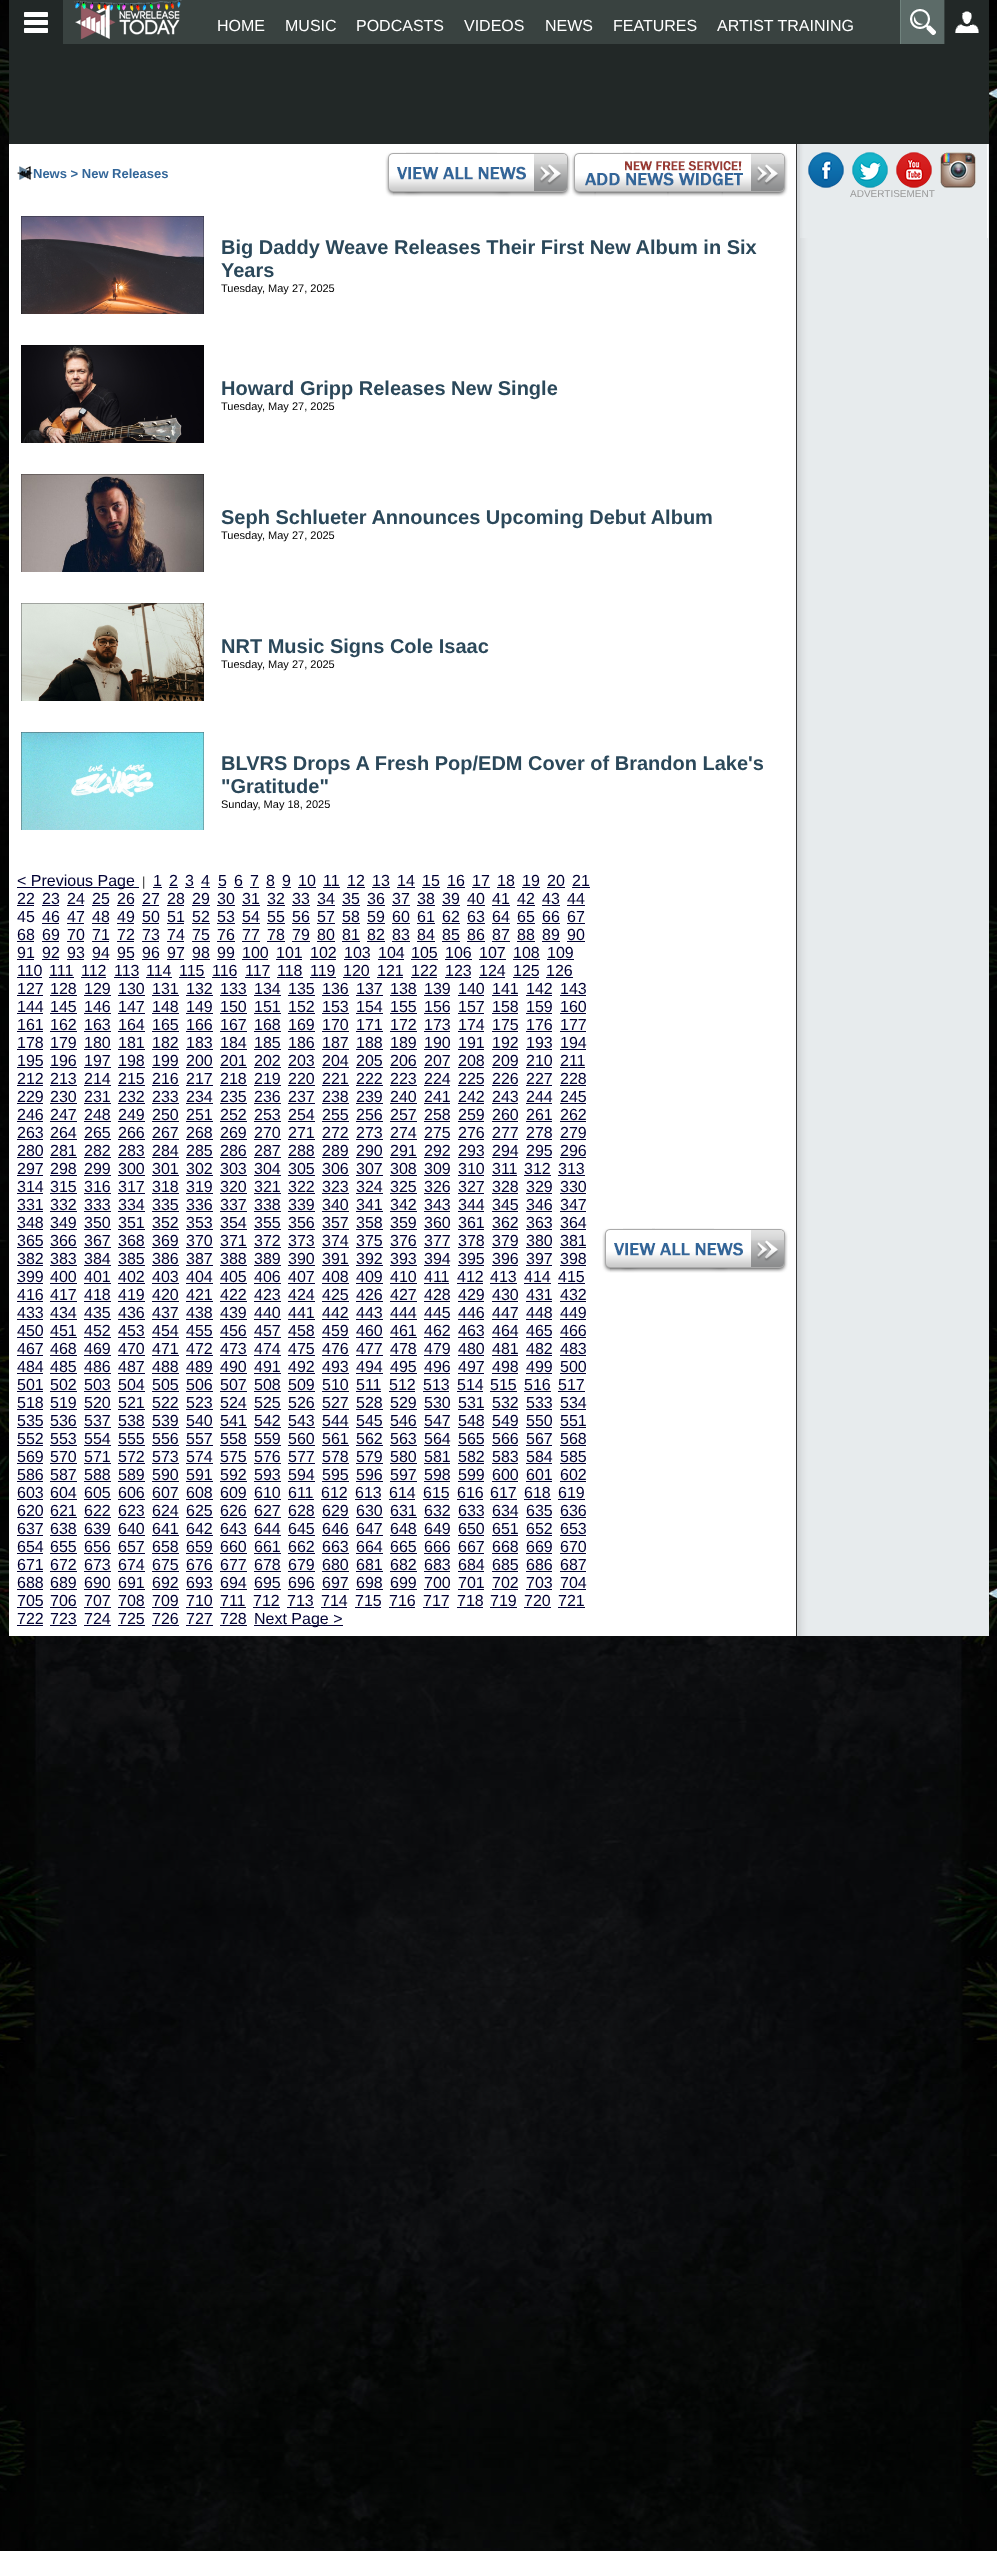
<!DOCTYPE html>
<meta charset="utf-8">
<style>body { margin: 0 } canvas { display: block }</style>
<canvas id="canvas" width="997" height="2551"></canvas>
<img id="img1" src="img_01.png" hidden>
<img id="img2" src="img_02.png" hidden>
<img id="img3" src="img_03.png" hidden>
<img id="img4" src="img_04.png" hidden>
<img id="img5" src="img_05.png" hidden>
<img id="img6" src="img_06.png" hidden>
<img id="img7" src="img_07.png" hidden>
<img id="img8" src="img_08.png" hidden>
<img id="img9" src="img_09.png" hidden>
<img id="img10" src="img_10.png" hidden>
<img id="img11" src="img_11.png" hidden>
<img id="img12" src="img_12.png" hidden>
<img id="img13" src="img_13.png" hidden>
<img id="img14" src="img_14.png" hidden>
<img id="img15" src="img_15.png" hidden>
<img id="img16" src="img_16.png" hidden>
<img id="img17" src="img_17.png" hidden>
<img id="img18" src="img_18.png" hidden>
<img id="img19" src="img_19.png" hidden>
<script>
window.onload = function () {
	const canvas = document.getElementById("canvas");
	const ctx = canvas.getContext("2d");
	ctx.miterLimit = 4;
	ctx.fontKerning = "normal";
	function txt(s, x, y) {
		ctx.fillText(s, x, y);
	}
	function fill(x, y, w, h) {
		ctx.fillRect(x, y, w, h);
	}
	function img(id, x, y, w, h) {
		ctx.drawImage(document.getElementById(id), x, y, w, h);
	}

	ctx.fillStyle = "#FFFFFF";
	fill(0, 0, 997, 2551);
	img("img1", 0, 0, 997, 2551);
	ctx.fillStyle = "#394240";
	fill(63, 0, 882, 44);
	ctx.fillStyle = "#222827";
	fill(9, 0, 54, 44);
	img("img2", 24, 12, 24, 21);
	img("img3", 74, 0, 108, 39);
	ctx.fillStyle = "#5C6B68";
	fill(901, 0, 43, 44);
	img("img4", 910, 9, 26, 26);
	ctx.fillStyle = "#70837E";
	fill(900, 0, 1, 44);
	ctx.fillStyle = "#222827";
	fill(945, 0, 44, 44);
	img("img5", 955, 11, 24, 23);
	fill(9, 44, 980, 100);
	ctx.fillStyle = "#FFFFFF";
	fill(9, 144, 787, 1492);
	img("img6", 17, 166, 16, 14);
	img("img7", 385, 152, 186, 45);
	img("img8", 571, 152, 217, 45);
	img("img9", 21, 216, 183, 98);
	img("img10", 21, 345, 183, 98);
	img("img11", 21, 474, 183, 98);
	img("img12", 21, 603, 183, 98);
	img("img13", 21, 732, 183, 98);
	ctx.fillStyle = "#000033";
	fill(17, 887, 122, 1);
	fill(153, 887, 9, 1);
	fill(169, 887, 9, 1);
	fill(185, 887, 9, 1);
	fill(201, 887, 9, 1);
	fill(218, 887, 8, 1);
	fill(234, 887, 9, 1);
	fill(250, 887, 9, 1);
	fill(266, 887, 9, 1);
	fill(282, 887, 9, 1);
	fill(298, 887, 18, 1);
	fill(323, 887, 17, 1);
	fill(347, 887, 18, 1);
	fill(372, 887, 18, 1);
	fill(397, 887, 18, 1);
	fill(422, 887, 18, 1);
	fill(447, 887, 18, 1);
	fill(472, 887, 18, 1);
	fill(497, 887, 18, 1);
	fill(522, 887, 18, 1);
	fill(547, 887, 18, 1);
	fill(572, 887, 18, 1);
	fill(17, 905, 17, 1);
	fill(42, 905, 17, 1);
	fill(67, 905, 17, 1);
	fill(92, 905, 17, 1);
	fill(117, 905, 17, 1);
	fill(142, 905, 17, 1);
	fill(167, 905, 17, 1);
	fill(192, 905, 18, 1);
	fill(217, 905, 18, 1);
	fill(242, 905, 18, 1);
	fill(267, 905, 18, 1);
	fill(292, 905, 18, 1);
	fill(317, 905, 18, 1);
	fill(342, 905, 18, 1);
	fill(367, 905, 18, 1);
	fill(392, 905, 18, 1);
	fill(417, 905, 18, 1);
	fill(442, 905, 18, 1);
	fill(467, 905, 18, 1);
	fill(492, 905, 18, 1);
	fill(517, 905, 18, 1);
	fill(542, 905, 18, 1);
	fill(567, 905, 18, 1);
	fill(42, 923, 17, 1);
	fill(67, 923, 17, 1);
	fill(92, 923, 17, 1);
	fill(117, 923, 17, 1);
	fill(142, 923, 17, 1);
	fill(167, 923, 17, 1);
	fill(192, 923, 18, 1);
	fill(217, 923, 18, 1);
	fill(242, 923, 18, 1);
	fill(267, 923, 18, 1);
	fill(292, 923, 18, 1);
	fill(317, 923, 18, 1);
	fill(342, 923, 18, 1);
	fill(367, 923, 18, 1);
	fill(392, 923, 18, 1);
	fill(417, 923, 18, 1);
	fill(442, 923, 18, 1);
	fill(467, 923, 18, 1);
	fill(492, 923, 18, 1);
	fill(517, 923, 18, 1);
	fill(542, 923, 18, 1);
	fill(567, 923, 18, 1);
	fill(17, 941, 17, 1);
	fill(42, 941, 17, 1);
	fill(67, 941, 17, 1);
	fill(92, 941, 17, 1);
	fill(117, 941, 17, 1);
	fill(142, 941, 17, 1);
	fill(167, 941, 17, 1);
	fill(192, 941, 18, 1);
	fill(217, 941, 18, 1);
	fill(242, 941, 18, 1);
	fill(267, 941, 18, 1);
	fill(292, 941, 18, 1);
	fill(317, 941, 18, 1);
	fill(342, 941, 18, 1);
	fill(367, 941, 18, 1);
	fill(392, 941, 18, 1);
	fill(417, 941, 18, 1);
	fill(442, 941, 18, 1);
	fill(467, 941, 18, 1);
	fill(492, 941, 18, 1);
	fill(517, 941, 18, 1);
	fill(542, 941, 18, 1);
	fill(567, 941, 18, 1);
	fill(17, 959, 17, 1);
	fill(42, 959, 17, 1);
	fill(67, 959, 17, 1);
	fill(92, 959, 17, 1);
	fill(117, 959, 17, 1);
	fill(142, 959, 17, 1);
	fill(167, 959, 17, 1);
	fill(192, 959, 18, 1);
	fill(217, 959, 18, 1);
	fill(242, 959, 26, 1);
	fill(276, 959, 26, 1);
	fill(310, 959, 26, 1);
	fill(344, 959, 26, 1);
	fill(378, 959, 26, 1);
	fill(411, 959, 27, 1);
	fill(445, 959, 27, 1);
	fill(479, 959, 27, 1);
	fill(513, 959, 27, 1);
	fill(547, 959, 27, 1);
	fill(17, 977, 25, 1);
	fill(49, 977, 25, 1);
	fill(81, 977, 25, 1);
	fill(114, 977, 25, 1);
	fill(146, 977, 26, 1);
	fill(179, 977, 26, 1);
	fill(212, 977, 25, 1);
	fill(245, 977, 25, 1);
	fill(277, 977, 26, 1);
	fill(310, 977, 26, 1);
	fill(343, 977, 27, 1);
	fill(377, 977, 26, 1);
	fill(411, 977, 26, 1);
	fill(445, 977, 26, 1);
	fill(479, 977, 26, 1);
	fill(513, 977, 26, 1);
	fill(546, 977, 27, 1);
	fill(17, 995, 26, 1);
	fill(50, 995, 27, 1);
	fill(84, 995, 27, 1);
	fill(118, 995, 27, 1);
	fill(152, 995, 27, 1);
	fill(186, 995, 27, 1);
	fill(220, 995, 27, 1);
	fill(254, 995, 27, 1);
	fill(288, 995, 27, 1);
	fill(322, 995, 27, 1);
	fill(356, 995, 27, 1);
	fill(390, 995, 27, 1);
	fill(424, 995, 26, 1);
	fill(458, 995, 26, 1);
	fill(492, 995, 26, 1);
	fill(526, 995, 26, 1);
	fill(560, 995, 26, 1);
	fill(17, 1013, 26, 1);
	fill(50, 1013, 27, 1);
	fill(84, 1013, 27, 1);
	fill(118, 1013, 27, 1);
	fill(152, 1013, 27, 1);
	fill(186, 1013, 27, 1);
	fill(220, 1013, 27, 1);
	fill(254, 1013, 27, 1);
	fill(288, 1013, 27, 1);
	fill(322, 1013, 27, 1);
	fill(356, 1013, 27, 1);
	fill(390, 1013, 27, 1);
	fill(424, 1013, 26, 1);
	fill(458, 1013, 26, 1);
	fill(492, 1013, 26, 1);
	fill(526, 1013, 26, 1);
	fill(560, 1013, 26, 1);
	fill(17, 1031, 26, 1);
	fill(50, 1031, 27, 1);
	fill(84, 1031, 27, 1);
	fill(118, 1031, 27, 1);
	fill(152, 1031, 27, 1);
	fill(186, 1031, 27, 1);
	fill(220, 1031, 27, 1);
	fill(254, 1031, 27, 1);
	fill(288, 1031, 27, 1);
	fill(322, 1031, 27, 1);
	fill(356, 1031, 27, 1);
	fill(390, 1031, 27, 1);
	fill(424, 1031, 26, 1);
	fill(458, 1031, 26, 1);
	fill(492, 1031, 26, 1);
	fill(526, 1031, 26, 1);
	fill(560, 1031, 26, 1);
	fill(17, 1049, 26, 1);
	fill(50, 1049, 27, 1);
	fill(84, 1049, 27, 1);
	fill(118, 1049, 27, 1);
	fill(152, 1049, 27, 1);
	fill(186, 1049, 27, 1);
	fill(220, 1049, 27, 1);
	fill(254, 1049, 27, 1);
	fill(288, 1049, 27, 1);
	fill(322, 1049, 27, 1);
	fill(356, 1049, 27, 1);
	fill(390, 1049, 27, 1);
	fill(424, 1049, 26, 1);
	fill(458, 1049, 26, 1);
	fill(492, 1049, 26, 1);
	fill(526, 1049, 26, 1);
	fill(560, 1049, 26, 1);
	fill(17, 1067, 26, 1);
	fill(50, 1067, 27, 1);
	fill(84, 1067, 27, 1);
	fill(118, 1067, 27, 1);
	fill(152, 1067, 27, 1);
	fill(186, 1067, 27, 1);
	fill(220, 1067, 27, 1);
	fill(254, 1067, 27, 1);
	fill(288, 1067, 27, 1);
	fill(322, 1067, 27, 1);
	fill(356, 1067, 27, 1);
	fill(390, 1067, 27, 1);
	fill(424, 1067, 26, 1);
	fill(458, 1067, 26, 1);
	fill(492, 1067, 26, 1);
	fill(526, 1067, 26, 1);
	fill(560, 1067, 25, 1);
	fill(17, 1085, 26, 1);
	fill(50, 1085, 27, 1);
	fill(84, 1085, 27, 1);
	fill(118, 1085, 27, 1);
	fill(152, 1085, 27, 1);
	fill(186, 1085, 27, 1);
	fill(220, 1085, 27, 1);
	fill(254, 1085, 27, 1);
	fill(288, 1085, 27, 1);
	fill(322, 1085, 27, 1);
	fill(356, 1085, 27, 1);
	fill(390, 1085, 27, 1);
	fill(424, 1085, 26, 1);
	fill(458, 1085, 26, 1);
	fill(492, 1085, 26, 1);
	fill(526, 1085, 26, 1);
	fill(560, 1085, 26, 1);
	fill(17, 1103, 26, 1);
	fill(50, 1103, 27, 1);
	fill(84, 1103, 27, 1);
	fill(118, 1103, 27, 1);
	fill(152, 1103, 27, 1);
	fill(186, 1103, 27, 1);
	fill(220, 1103, 27, 1);
	fill(254, 1103, 27, 1);
	fill(288, 1103, 27, 1);
	fill(322, 1103, 27, 1);
	fill(356, 1103, 27, 1);
	fill(390, 1103, 27, 1);
	fill(424, 1103, 26, 1);
	fill(458, 1103, 26, 1);
	fill(492, 1103, 26, 1);
	fill(526, 1103, 26, 1);
	fill(560, 1103, 26, 1);
	fill(17, 1121, 26, 1);
	fill(50, 1121, 27, 1);
	fill(84, 1121, 27, 1);
	fill(118, 1121, 27, 1);
	fill(152, 1121, 27, 1);
	fill(186, 1121, 27, 1);
	fill(220, 1121, 27, 1);
	fill(254, 1121, 27, 1);
	fill(288, 1121, 27, 1);
	fill(322, 1121, 27, 1);
	fill(356, 1121, 27, 1);
	fill(390, 1121, 27, 1);
	fill(424, 1121, 26, 1);
	fill(458, 1121, 26, 1);
	fill(492, 1121, 26, 1);
	fill(526, 1121, 26, 1);
	fill(560, 1121, 26, 1);
	fill(17, 1139, 26, 1);
	fill(50, 1139, 27, 1);
	fill(84, 1139, 27, 1);
	fill(118, 1139, 27, 1);
	fill(152, 1139, 27, 1);
	fill(186, 1139, 27, 1);
	fill(220, 1139, 27, 1);
	fill(254, 1139, 27, 1);
	fill(288, 1139, 27, 1);
	fill(322, 1139, 27, 1);
	fill(356, 1139, 27, 1);
	fill(390, 1139, 27, 1);
	fill(424, 1139, 26, 1);
	fill(458, 1139, 26, 1);
	fill(492, 1139, 26, 1);
	fill(526, 1139, 26, 1);
	fill(560, 1139, 26, 1);
	fill(17, 1157, 26, 1);
	fill(50, 1157, 27, 1);
	fill(84, 1157, 27, 1);
	fill(118, 1157, 27, 1);
	fill(152, 1157, 27, 1);
	fill(186, 1157, 27, 1);
	fill(220, 1157, 27, 1);
	fill(254, 1157, 27, 1);
	fill(288, 1157, 27, 1);
	fill(322, 1157, 27, 1);
	fill(356, 1157, 27, 1);
	fill(390, 1157, 27, 1);
	fill(424, 1157, 26, 1);
	fill(458, 1157, 26, 1);
	fill(492, 1157, 26, 1);
	fill(526, 1157, 26, 1);
	fill(560, 1157, 26, 1);
	fill(17, 1175, 26, 1);
	fill(50, 1175, 27, 1);
	fill(84, 1175, 27, 1);
	fill(118, 1175, 27, 1);
	fill(152, 1175, 27, 1);
	fill(186, 1175, 27, 1);
	fill(220, 1175, 27, 1);
	fill(254, 1175, 27, 1);
	fill(288, 1175, 27, 1);
	fill(322, 1175, 27, 1);
	fill(356, 1175, 27, 1);
	fill(390, 1175, 27, 1);
	fill(424, 1175, 26, 1);
	fill(458, 1175, 26, 1);
	fill(492, 1175, 25, 1);
	fill(524, 1175, 27, 1);
	fill(558, 1175, 27, 1);
	fill(17, 1193, 26, 1);
	fill(50, 1193, 27, 1);
	fill(84, 1193, 27, 1);
	fill(118, 1193, 27, 1);
	fill(152, 1193, 27, 1);
	fill(186, 1193, 27, 1);
	fill(220, 1193, 27, 1);
	fill(254, 1193, 27, 1);
	fill(288, 1193, 27, 1);
	fill(322, 1193, 27, 1);
	fill(356, 1193, 27, 1);
	fill(390, 1193, 27, 1);
	fill(424, 1193, 26, 1);
	fill(458, 1193, 26, 1);
	fill(492, 1193, 26, 1);
	fill(526, 1193, 26, 1);
	fill(560, 1193, 26, 1);
	fill(17, 1211, 26, 1);
	fill(50, 1211, 27, 1);
	fill(84, 1211, 27, 1);
	fill(118, 1211, 27, 1);
	fill(152, 1211, 27, 1);
	fill(186, 1211, 27, 1);
	fill(220, 1211, 27, 1);
	fill(254, 1211, 27, 1);
	fill(288, 1211, 27, 1);
	fill(322, 1211, 27, 1);
	fill(356, 1211, 27, 1);
	fill(390, 1211, 27, 1);
	fill(424, 1211, 26, 1);
	fill(458, 1211, 26, 1);
	fill(492, 1211, 26, 1);
	fill(526, 1211, 26, 1);
	fill(560, 1211, 26, 1);
	fill(17, 1229, 26, 1);
	fill(50, 1229, 27, 1);
	fill(84, 1229, 27, 1);
	fill(118, 1229, 27, 1);
	fill(152, 1229, 27, 1);
	fill(186, 1229, 27, 1);
	fill(220, 1229, 27, 1);
	fill(254, 1229, 27, 1);
	fill(288, 1229, 27, 1);
	fill(322, 1229, 27, 1);
	fill(356, 1229, 27, 1);
	fill(390, 1229, 27, 1);
	fill(424, 1229, 26, 1);
	fill(458, 1229, 26, 1);
	fill(492, 1229, 26, 1);
	fill(526, 1229, 26, 1);
	fill(560, 1229, 26, 1);
	fill(17, 1247, 26, 1);
	fill(50, 1247, 27, 1);
	fill(84, 1247, 27, 1);
	fill(118, 1247, 27, 1);
	fill(152, 1247, 27, 1);
	fill(186, 1247, 27, 1);
	fill(220, 1247, 27, 1);
	fill(254, 1247, 27, 1);
	fill(288, 1247, 27, 1);
	fill(322, 1247, 27, 1);
	fill(356, 1247, 27, 1);
	fill(390, 1247, 27, 1);
	fill(424, 1247, 26, 1);
	fill(458, 1247, 26, 1);
	fill(492, 1247, 26, 1);
	fill(526, 1247, 26, 1);
	fill(560, 1247, 26, 1);
	fill(17, 1265, 26, 1);
	fill(50, 1265, 27, 1);
	fill(84, 1265, 27, 1);
	fill(118, 1265, 27, 1);
	fill(152, 1265, 27, 1);
	fill(186, 1265, 27, 1);
	fill(220, 1265, 27, 1);
	fill(254, 1265, 27, 1);
	fill(288, 1265, 27, 1);
	fill(322, 1265, 27, 1);
	fill(356, 1265, 27, 1);
	fill(390, 1265, 27, 1);
	fill(424, 1265, 26, 1);
	fill(458, 1265, 26, 1);
	fill(492, 1265, 26, 1);
	fill(526, 1265, 26, 1);
	fill(560, 1265, 26, 1);
	fill(17, 1283, 26, 1);
	fill(50, 1283, 27, 1);
	fill(84, 1283, 27, 1);
	fill(118, 1283, 27, 1);
	fill(152, 1283, 27, 1);
	fill(186, 1283, 27, 1);
	fill(220, 1283, 27, 1);
	fill(254, 1283, 27, 1);
	fill(288, 1283, 27, 1);
	fill(322, 1283, 27, 1);
	fill(356, 1283, 27, 1);
	fill(390, 1283, 27, 1);
	fill(424, 1283, 25, 1);
	fill(457, 1283, 26, 1);
	fill(490, 1283, 27, 1);
	fill(524, 1283, 27, 1);
	fill(558, 1283, 27, 1);
	fill(17, 1301, 26, 1);
	fill(50, 1301, 27, 1);
	fill(84, 1301, 27, 1);
	fill(118, 1301, 27, 1);
	fill(152, 1301, 27, 1);
	fill(186, 1301, 27, 1);
	fill(220, 1301, 27, 1);
	fill(254, 1301, 27, 1);
	fill(288, 1301, 27, 1);
	fill(322, 1301, 27, 1);
	fill(356, 1301, 27, 1);
	fill(390, 1301, 27, 1);
	fill(424, 1301, 26, 1);
	fill(458, 1301, 26, 1);
	fill(492, 1301, 26, 1);
	fill(526, 1301, 26, 1);
	fill(560, 1301, 26, 1);
	fill(17, 1319, 26, 1);
	fill(50, 1319, 27, 1);
	fill(84, 1319, 27, 1);
	fill(118, 1319, 27, 1);
	fill(152, 1319, 27, 1);
	fill(186, 1319, 27, 1);
	fill(220, 1319, 27, 1);
	fill(254, 1319, 27, 1);
	fill(288, 1319, 27, 1);
	fill(322, 1319, 27, 1);
	fill(356, 1319, 27, 1);
	fill(390, 1319, 27, 1);
	fill(424, 1319, 26, 1);
	fill(458, 1319, 26, 1);
	fill(492, 1319, 26, 1);
	fill(526, 1319, 26, 1);
	fill(560, 1319, 26, 1);
	fill(17, 1337, 26, 1);
	fill(50, 1337, 27, 1);
	fill(84, 1337, 27, 1);
	fill(118, 1337, 27, 1);
	fill(152, 1337, 27, 1);
	fill(186, 1337, 27, 1);
	fill(220, 1337, 27, 1);
	fill(254, 1337, 27, 1);
	fill(288, 1337, 27, 1);
	fill(322, 1337, 27, 1);
	fill(356, 1337, 27, 1);
	fill(390, 1337, 27, 1);
	fill(424, 1337, 26, 1);
	fill(458, 1337, 26, 1);
	fill(492, 1337, 26, 1);
	fill(526, 1337, 26, 1);
	fill(560, 1337, 26, 1);
	fill(17, 1355, 26, 1);
	fill(50, 1355, 27, 1);
	fill(84, 1355, 27, 1);
	fill(118, 1355, 27, 1);
	fill(152, 1355, 27, 1);
	fill(186, 1355, 27, 1);
	fill(220, 1355, 27, 1);
	fill(254, 1355, 27, 1);
	fill(288, 1355, 27, 1);
	fill(322, 1355, 27, 1);
	fill(356, 1355, 27, 1);
	fill(390, 1355, 27, 1);
	fill(424, 1355, 26, 1);
	fill(458, 1355, 26, 1);
	fill(492, 1355, 26, 1);
	fill(526, 1355, 26, 1);
	fill(560, 1355, 26, 1);
	fill(17, 1373, 26, 1);
	fill(50, 1373, 27, 1);
	fill(84, 1373, 27, 1);
	fill(118, 1373, 27, 1);
	fill(152, 1373, 27, 1);
	fill(186, 1373, 27, 1);
	fill(220, 1373, 27, 1);
	fill(254, 1373, 27, 1);
	fill(288, 1373, 27, 1);
	fill(322, 1373, 27, 1);
	fill(356, 1373, 27, 1);
	fill(390, 1373, 27, 1);
	fill(424, 1373, 26, 1);
	fill(458, 1373, 26, 1);
	fill(492, 1373, 26, 1);
	fill(526, 1373, 26, 1);
	fill(560, 1373, 26, 1);
	fill(17, 1391, 26, 1);
	fill(50, 1391, 27, 1);
	fill(84, 1391, 27, 1);
	fill(118, 1391, 27, 1);
	fill(152, 1391, 27, 1);
	fill(186, 1391, 27, 1);
	fill(220, 1391, 27, 1);
	fill(254, 1391, 27, 1);
	fill(288, 1391, 27, 1);
	fill(322, 1391, 27, 1);
	fill(356, 1391, 25, 1);
	fill(389, 1391, 26, 1);
	fill(423, 1391, 26, 1);
	fill(457, 1391, 26, 1);
	fill(490, 1391, 27, 1);
	fill(524, 1391, 27, 1);
	fill(558, 1391, 27, 1);
	fill(17, 1409, 26, 1);
	fill(50, 1409, 27, 1);
	fill(84, 1409, 27, 1);
	fill(118, 1409, 27, 1);
	fill(152, 1409, 27, 1);
	fill(186, 1409, 27, 1);
	fill(220, 1409, 27, 1);
	fill(254, 1409, 27, 1);
	fill(288, 1409, 27, 1);
	fill(322, 1409, 27, 1);
	fill(356, 1409, 27, 1);
	fill(390, 1409, 27, 1);
	fill(424, 1409, 26, 1);
	fill(458, 1409, 26, 1);
	fill(492, 1409, 26, 1);
	fill(526, 1409, 26, 1);
	fill(560, 1409, 26, 1);
	fill(17, 1427, 26, 1);
	fill(50, 1427, 27, 1);
	fill(84, 1427, 27, 1);
	fill(118, 1427, 27, 1);
	fill(152, 1427, 27, 1);
	fill(186, 1427, 27, 1);
	fill(220, 1427, 27, 1);
	fill(254, 1427, 27, 1);
	fill(288, 1427, 27, 1);
	fill(322, 1427, 27, 1);
	fill(356, 1427, 27, 1);
	fill(390, 1427, 27, 1);
	fill(424, 1427, 26, 1);
	fill(458, 1427, 26, 1);
	fill(492, 1427, 26, 1);
	fill(526, 1427, 26, 1);
	fill(560, 1427, 26, 1);
	fill(17, 1445, 26, 1);
	fill(50, 1445, 27, 1);
	fill(84, 1445, 27, 1);
	fill(118, 1445, 27, 1);
	fill(152, 1445, 27, 1);
	fill(186, 1445, 27, 1);
	fill(220, 1445, 27, 1);
	fill(254, 1445, 27, 1);
	fill(288, 1445, 27, 1);
	fill(322, 1445, 27, 1);
	fill(356, 1445, 27, 1);
	fill(390, 1445, 27, 1);
	fill(424, 1445, 26, 1);
	fill(458, 1445, 26, 1);
	fill(492, 1445, 26, 1);
	fill(526, 1445, 26, 1);
	fill(560, 1445, 26, 1);
	fill(17, 1463, 26, 1);
	fill(50, 1463, 27, 1);
	fill(84, 1463, 27, 1);
	fill(118, 1463, 27, 1);
	fill(152, 1463, 27, 1);
	fill(186, 1463, 27, 1);
	fill(220, 1463, 27, 1);
	fill(254, 1463, 27, 1);
	fill(288, 1463, 27, 1);
	fill(322, 1463, 27, 1);
	fill(356, 1463, 27, 1);
	fill(390, 1463, 27, 1);
	fill(424, 1463, 26, 1);
	fill(458, 1463, 26, 1);
	fill(492, 1463, 26, 1);
	fill(526, 1463, 26, 1);
	fill(560, 1463, 26, 1);
	fill(17, 1481, 26, 1);
	fill(50, 1481, 27, 1);
	fill(84, 1481, 27, 1);
	fill(118, 1481, 27, 1);
	fill(152, 1481, 27, 1);
	fill(186, 1481, 27, 1);
	fill(220, 1481, 27, 1);
	fill(254, 1481, 27, 1);
	fill(288, 1481, 27, 1);
	fill(322, 1481, 27, 1);
	fill(356, 1481, 27, 1);
	fill(390, 1481, 27, 1);
	fill(424, 1481, 26, 1);
	fill(458, 1481, 26, 1);
	fill(492, 1481, 26, 1);
	fill(526, 1481, 26, 1);
	fill(560, 1481, 26, 1);
	fill(17, 1499, 26, 1);
	fill(50, 1499, 27, 1);
	fill(84, 1499, 27, 1);
	fill(118, 1499, 27, 1);
	fill(152, 1499, 27, 1);
	fill(186, 1499, 27, 1);
	fill(220, 1499, 27, 1);
	fill(254, 1499, 27, 1);
	fill(288, 1499, 26, 1);
	fill(321, 1499, 26, 1);
	fill(355, 1499, 26, 1);
	fill(389, 1499, 26, 1);
	fill(423, 1499, 26, 1);
	fill(457, 1499, 26, 1);
	fill(490, 1499, 27, 1);
	fill(524, 1499, 27, 1);
	fill(558, 1499, 27, 1);
	fill(17, 1517, 26, 1);
	fill(50, 1517, 27, 1);
	fill(84, 1517, 27, 1);
	fill(118, 1517, 27, 1);
	fill(152, 1517, 27, 1);
	fill(186, 1517, 27, 1);
	fill(220, 1517, 27, 1);
	fill(254, 1517, 27, 1);
	fill(288, 1517, 27, 1);
	fill(322, 1517, 27, 1);
	fill(356, 1517, 27, 1);
	fill(390, 1517, 27, 1);
	fill(424, 1517, 26, 1);
	fill(458, 1517, 26, 1);
	fill(492, 1517, 26, 1);
	fill(526, 1517, 26, 1);
	fill(560, 1517, 26, 1);
	fill(17, 1535, 26, 1);
	fill(50, 1535, 27, 1);
	fill(84, 1535, 27, 1);
	fill(118, 1535, 27, 1);
	fill(152, 1535, 27, 1);
	fill(186, 1535, 27, 1);
	fill(220, 1535, 27, 1);
	fill(254, 1535, 27, 1);
	fill(288, 1535, 27, 1);
	fill(322, 1535, 27, 1);
	fill(356, 1535, 27, 1);
	fill(390, 1535, 27, 1);
	fill(424, 1535, 26, 1);
	fill(458, 1535, 26, 1);
	fill(492, 1535, 26, 1);
	fill(526, 1535, 26, 1);
	fill(560, 1535, 26, 1);
	fill(17, 1553, 26, 1);
	fill(50, 1553, 27, 1);
	fill(84, 1553, 27, 1);
	fill(118, 1553, 27, 1);
	fill(152, 1553, 27, 1);
	fill(186, 1553, 27, 1);
	fill(220, 1553, 27, 1);
	fill(254, 1553, 27, 1);
	fill(288, 1553, 27, 1);
	fill(322, 1553, 27, 1);
	fill(356, 1553, 27, 1);
	fill(390, 1553, 27, 1);
	fill(424, 1553, 26, 1);
	fill(458, 1553, 26, 1);
	fill(492, 1553, 26, 1);
	fill(526, 1553, 26, 1);
	fill(560, 1553, 26, 1);
	fill(17, 1571, 26, 1);
	fill(50, 1571, 27, 1);
	fill(84, 1571, 27, 1);
	fill(118, 1571, 27, 1);
	fill(152, 1571, 27, 1);
	fill(186, 1571, 27, 1);
	fill(220, 1571, 27, 1);
	fill(254, 1571, 27, 1);
	fill(288, 1571, 27, 1);
	fill(322, 1571, 27, 1);
	fill(356, 1571, 27, 1);
	fill(390, 1571, 27, 1);
	fill(424, 1571, 26, 1);
	fill(458, 1571, 26, 1);
	fill(492, 1571, 26, 1);
	fill(526, 1571, 26, 1);
	fill(560, 1571, 26, 1);
	fill(17, 1589, 26, 1);
	fill(50, 1589, 27, 1);
	fill(84, 1589, 27, 1);
	fill(118, 1589, 27, 1);
	fill(152, 1589, 27, 1);
	fill(186, 1589, 27, 1);
	fill(220, 1589, 27, 1);
	fill(254, 1589, 27, 1);
	fill(288, 1589, 27, 1);
	fill(322, 1589, 27, 1);
	fill(356, 1589, 27, 1);
	fill(390, 1589, 27, 1);
	fill(424, 1589, 26, 1);
	fill(458, 1589, 26, 1);
	fill(492, 1589, 26, 1);
	fill(526, 1589, 26, 1);
	fill(560, 1589, 26, 1);
	fill(17, 1607, 26, 1);
	fill(50, 1607, 27, 1);
	fill(84, 1607, 27, 1);
	fill(118, 1607, 27, 1);
	fill(152, 1607, 27, 1);
	fill(186, 1607, 27, 1);
	fill(220, 1607, 26, 1);
	fill(253, 1607, 27, 1);
	fill(287, 1607, 27, 1);
	fill(321, 1607, 26, 1);
	fill(355, 1607, 26, 1);
	fill(389, 1607, 26, 1);
	fill(423, 1607, 26, 1);
	fill(457, 1607, 26, 1);
	fill(490, 1607, 27, 1);
	fill(524, 1607, 27, 1);
	fill(558, 1607, 27, 1);
	fill(17, 1625, 26, 1);
	fill(50, 1625, 27, 1);
	fill(84, 1625, 27, 1);
	fill(118, 1625, 27, 1);
	fill(152, 1625, 27, 1);
	fill(186, 1625, 27, 1);
	fill(220, 1625, 27, 1);
	fill(254, 1625, 89, 1);
	img("img7", 602, 1228, 186, 45);
	img("img14", 796, 144, 193, 1492);
	img("img15", 800, 144, 188, 94);
	img("img16", 808, 152, 36, 36);
	img("img17", 852, 152, 36, 36);
	img("img18", 896, 152, 36, 36);
	img("img19", 940, 152, 36, 36);
	ctx.font = "16px Liberation Sans";
	ctx.fillStyle = "#FFFFFF";
	txt("HOME", 217, 31);
	txt("MUSIC", 285, 31);
	txt("PODCASTS", 356, 31);
	txt("VIDEOS", 464, 31);
	txt("NEWS", 545, 31);
	txt("FEATURES", 613, 31);
	txt("ARTIST TRAINING", 717, 31);
	ctx.font = "bold 13px Liberation Sans";
	ctx.fillStyle = "#336699";
	txt("News > New Releases", 33, 178);
	ctx.font = "bold 20px Liberation Sans";
	ctx.fillStyle = "#2B485A";
	txt("Big Daddy Weave Releases Their First New Album in Six", 221, 254);
	txt("Years", 221, 277);
	ctx.font = "11px Liberation Sans";
	ctx.fillStyle = "#000000";
	txt("Tuesday, May 27, 2025", 221, 292);
	ctx.font = "bold 20px Liberation Sans";
	ctx.fillStyle = "#2B485A";
	txt("Howard Gripp Releases New Single", 221, 395);
	ctx.font = "11px Liberation Sans";
	ctx.fillStyle = "#000000";
	txt("Tuesday, May 27, 2025", 221, 410);
	ctx.font = "bold 20px Liberation Sans";
	ctx.fillStyle = "#2B485A";
	txt("Seph Schlueter Announces Upcoming Debut Album", 221, 524);
	ctx.font = "11px Liberation Sans";
	ctx.fillStyle = "#000000";
	txt("Tuesday, May 27, 2025", 221, 539);
	ctx.font = "bold 20px Liberation Sans";
	ctx.fillStyle = "#2B485A";
	txt("NRT Music Signs Cole Isaac", 221, 653);
	ctx.font = "11px Liberation Sans";
	ctx.fillStyle = "#000000";
	txt("Tuesday, May 27, 2025", 221, 668);
	ctx.font = "bold 20px Liberation Sans";
	ctx.fillStyle = "#2B485A";
	txt("BLVRS Drops A Fresh Pop/EDM Cover of Brandon Lake's", 221, 770);
	txt("\"Gratitude\"", 221, 793);
	ctx.font = "11px Liberation Sans";
	ctx.fillStyle = "#000000";
	txt("Sunday, May 18, 2025", 221, 808);
	ctx.font = "16px Liberation Sans";
	ctx.fillStyle = "#000033";
	txt("< Previous Page", 17, 886);
	ctx.font = "13px Liberation Sans";
	ctx.fillStyle = "#333333";
	txt("|", 142, 886);
	ctx.font = "16px Liberation Sans";
	ctx.fillStyle = "#000033";
	txt("1", 153, 886);
	txt("2", 169, 886);
	txt("3", 185, 886);
	txt("4", 201, 886);
	txt("5", 218, 886);
	txt("6", 234, 886);
	txt("7", 250, 886);
	txt("8", 266, 886);
	txt("9", 282, 886);
	txt("10", 298, 886);
	txt("11", 323, 886);
	txt("12", 347, 886);
	txt("13", 372, 886);
	txt("14", 397, 886);
	txt("15", 422, 886);
	txt("16", 447, 886);
	txt("17", 472, 886);
	txt("18", 497, 886);
	txt("19", 522, 886);
	txt("20", 547, 886);
	txt("21", 572, 886);
	txt("22", 17, 904);
	txt("23", 42, 904);
	txt("24", 67, 904);
	txt("25", 92, 904);
	txt("26", 117, 904);
	txt("27", 142, 904);
	txt("28", 167, 904);
	txt("29", 192, 904);
	txt("30", 217, 904);
	txt("31", 242, 904);
	txt("32", 267, 904);
	txt("33", 292, 904);
	txt("34", 317, 904);
	txt("35", 342, 904);
	txt("36", 367, 904);
	txt("37", 392, 904);
	txt("38", 417, 904);
	txt("39", 442, 904);
	txt("40", 467, 904);
	txt("41", 492, 904);
	txt("42", 517, 904);
	txt("43", 542, 904);
	txt("44", 567, 904);
	txt("45", 17, 922);
	txt("46", 42, 922);
	txt("47", 67, 922);
	txt("48", 92, 922);
	txt("49", 117, 922);
	txt("50", 142, 922);
	txt("51", 167, 922);
	txt("52", 192, 922);
	txt("53", 217, 922);
	txt("54", 242, 922);
	txt("55", 267, 922);
	txt("56", 292, 922);
	txt("57", 317, 922);
	txt("58", 342, 922);
	txt("59", 367, 922);
	txt("60", 392, 922);
	txt("61", 417, 922);
	txt("62", 442, 922);
	txt("63", 467, 922);
	txt("64", 492, 922);
	txt("65", 517, 922);
	txt("66", 542, 922);
	txt("67", 567, 922);
	txt("68", 17, 940);
	txt("69", 42, 940);
	txt("70", 67, 940);
	txt("71", 92, 940);
	txt("72", 117, 940);
	txt("73", 142, 940);
	txt("74", 167, 940);
	txt("75", 192, 940);
	txt("76", 217, 940);
	txt("77", 242, 940);
	txt("78", 267, 940);
	txt("79", 292, 940);
	txt("80", 317, 940);
	txt("81", 342, 940);
	txt("82", 367, 940);
	txt("83", 392, 940);
	txt("84", 417, 940);
	txt("85", 442, 940);
	txt("86", 467, 940);
	txt("87", 492, 940);
	txt("88", 517, 940);
	txt("89", 542, 940);
	txt("90", 567, 940);
	txt("91", 17, 958);
	txt("92", 42, 958);
	txt("93", 67, 958);
	txt("94", 92, 958);
	txt("95", 117, 958);
	txt("96", 142, 958);
	txt("97", 167, 958);
	txt("98", 192, 958);
	txt("99", 217, 958);
	txt("100", 242, 958);
	txt("101", 276, 958);
	txt("102", 310, 958);
	txt("103", 344, 958);
	txt("104", 378, 958);
	txt("105", 411, 958);
	txt("106", 445, 958);
	txt("107", 479, 958);
	txt("108", 513, 958);
	txt("109", 547, 958);
	txt("110", 17, 976);
	txt("111", 49, 976);
	txt("112", 81, 976);
	txt("113", 114, 976);
	txt("114", 146, 976);
	txt("115", 179, 976);
	txt("116", 212, 976);
	txt("117", 245, 976);
	txt("118", 277, 976);
	txt("119", 310, 976);
	txt("120", 343, 976);
	txt("121", 377, 976);
	txt("122", 411, 976);
	txt("123", 445, 976);
	txt("124", 479, 976);
	txt("125", 513, 976);
	txt("126", 546, 976);
	txt("127", 17, 994);
	txt("128", 50, 994);
	txt("129", 84, 994);
	txt("130", 118, 994);
	txt("131", 152, 994);
	txt("132", 186, 994);
	txt("133", 220, 994);
	txt("134", 254, 994);
	txt("135", 288, 994);
	txt("136", 322, 994);
	txt("137", 356, 994);
	txt("138", 390, 994);
	txt("139", 424, 994);
	txt("140", 458, 994);
	txt("141", 492, 994);
	txt("142", 526, 994);
	txt("143", 560, 994);
	txt("144", 17, 1012);
	txt("145", 50, 1012);
	txt("146", 84, 1012);
	txt("147", 118, 1012);
	txt("148", 152, 1012);
	txt("149", 186, 1012);
	txt("150", 220, 1012);
	txt("151", 254, 1012);
	txt("152", 288, 1012);
	txt("153", 322, 1012);
	txt("154", 356, 1012);
	txt("155", 390, 1012);
	txt("156", 424, 1012);
	txt("157", 458, 1012);
	txt("158", 492, 1012);
	txt("159", 526, 1012);
	txt("160", 560, 1012);
	txt("161", 17, 1030);
	txt("162", 50, 1030);
	txt("163", 84, 1030);
	txt("164", 118, 1030);
	txt("165", 152, 1030);
	txt("166", 186, 1030);
	txt("167", 220, 1030);
	txt("168", 254, 1030);
	txt("169", 288, 1030);
	txt("170", 322, 1030);
	txt("171", 356, 1030);
	txt("172", 390, 1030);
	txt("173", 424, 1030);
	txt("174", 458, 1030);
	txt("175", 492, 1030);
	txt("176", 526, 1030);
	txt("177", 560, 1030);
	txt("178", 17, 1048);
	txt("179", 50, 1048);
	txt("180", 84, 1048);
	txt("181", 118, 1048);
	txt("182", 152, 1048);
	txt("183", 186, 1048);
	txt("184", 220, 1048);
	txt("185", 254, 1048);
	txt("186", 288, 1048);
	txt("187", 322, 1048);
	txt("188", 356, 1048);
	txt("189", 390, 1048);
	txt("190", 424, 1048);
	txt("191", 458, 1048);
	txt("192", 492, 1048);
	txt("193", 526, 1048);
	txt("194", 560, 1048);
	txt("195", 17, 1066);
	txt("196", 50, 1066);
	txt("197", 84, 1066);
	txt("198", 118, 1066);
	txt("199", 152, 1066);
	txt("200", 186, 1066);
	txt("201", 220, 1066);
	txt("202", 254, 1066);
	txt("203", 288, 1066);
	txt("204", 322, 1066);
	txt("205", 356, 1066);
	txt("206", 390, 1066);
	txt("207", 424, 1066);
	txt("208", 458, 1066);
	txt("209", 492, 1066);
	txt("210", 526, 1066);
	txt("211", 560, 1066);
	txt("212", 17, 1084);
	txt("213", 50, 1084);
	txt("214", 84, 1084);
	txt("215", 118, 1084);
	txt("216", 152, 1084);
	txt("217", 186, 1084);
	txt("218", 220, 1084);
	txt("219", 254, 1084);
	txt("220", 288, 1084);
	txt("221", 322, 1084);
	txt("222", 356, 1084);
	txt("223", 390, 1084);
	txt("224", 424, 1084);
	txt("225", 458, 1084);
	txt("226", 492, 1084);
	txt("227", 526, 1084);
	txt("228", 560, 1084);
	txt("229", 17, 1102);
	txt("230", 50, 1102);
	txt("231", 84, 1102);
	txt("232", 118, 1102);
	txt("233", 152, 1102);
	txt("234", 186, 1102);
	txt("235", 220, 1102);
	txt("236", 254, 1102);
	txt("237", 288, 1102);
	txt("238", 322, 1102);
	txt("239", 356, 1102);
	txt("240", 390, 1102);
	txt("241", 424, 1102);
	txt("242", 458, 1102);
	txt("243", 492, 1102);
	txt("244", 526, 1102);
	txt("245", 560, 1102);
	txt("246", 17, 1120);
	txt("247", 50, 1120);
	txt("248", 84, 1120);
	txt("249", 118, 1120);
	txt("250", 152, 1120);
	txt("251", 186, 1120);
	txt("252", 220, 1120);
	txt("253", 254, 1120);
	txt("254", 288, 1120);
	txt("255", 322, 1120);
	txt("256", 356, 1120);
	txt("257", 390, 1120);
	txt("258", 424, 1120);
	txt("259", 458, 1120);
	txt("260", 492, 1120);
	txt("261", 526, 1120);
	txt("262", 560, 1120);
	txt("263", 17, 1138);
	txt("264", 50, 1138);
	txt("265", 84, 1138);
	txt("266", 118, 1138);
	txt("267", 152, 1138);
	txt("268", 186, 1138);
	txt("269", 220, 1138);
	txt("270", 254, 1138);
	txt("271", 288, 1138);
	txt("272", 322, 1138);
	txt("273", 356, 1138);
	txt("274", 390, 1138);
	txt("275", 424, 1138);
	txt("276", 458, 1138);
	txt("277", 492, 1138);
	txt("278", 526, 1138);
	txt("279", 560, 1138);
	txt("280", 17, 1156);
	txt("281", 50, 1156);
	txt("282", 84, 1156);
	txt("283", 118, 1156);
	txt("284", 152, 1156);
	txt("285", 186, 1156);
	txt("286", 220, 1156);
	txt("287", 254, 1156);
	txt("288", 288, 1156);
	txt("289", 322, 1156);
	txt("290", 356, 1156);
	txt("291", 390, 1156);
	txt("292", 424, 1156);
	txt("293", 458, 1156);
	txt("294", 492, 1156);
	txt("295", 526, 1156);
	txt("296", 560, 1156);
	txt("297", 17, 1174);
	txt("298", 50, 1174);
	txt("299", 84, 1174);
	txt("300", 118, 1174);
	txt("301", 152, 1174);
	txt("302", 186, 1174);
	txt("303", 220, 1174);
	txt("304", 254, 1174);
	txt("305", 288, 1174);
	txt("306", 322, 1174);
	txt("307", 356, 1174);
	txt("308", 390, 1174);
	txt("309", 424, 1174);
	txt("310", 458, 1174);
	txt("311", 492, 1174);
	txt("312", 524, 1174);
	txt("313", 558, 1174);
	txt("314", 17, 1192);
	txt("315", 50, 1192);
	txt("316", 84, 1192);
	txt("317", 118, 1192);
	txt("318", 152, 1192);
	txt("319", 186, 1192);
	txt("320", 220, 1192);
	txt("321", 254, 1192);
	txt("322", 288, 1192);
	txt("323", 322, 1192);
	txt("324", 356, 1192);
	txt("325", 390, 1192);
	txt("326", 424, 1192);
	txt("327", 458, 1192);
	txt("328", 492, 1192);
	txt("329", 526, 1192);
	txt("330", 560, 1192);
	txt("331", 17, 1210);
	txt("332", 50, 1210);
	txt("333", 84, 1210);
	txt("334", 118, 1210);
	txt("335", 152, 1210);
	txt("336", 186, 1210);
	txt("337", 220, 1210);
	txt("338", 254, 1210);
	txt("339", 288, 1210);
	txt("340", 322, 1210);
	txt("341", 356, 1210);
	txt("342", 390, 1210);
	txt("343", 424, 1210);
	txt("344", 458, 1210);
	txt("345", 492, 1210);
	txt("346", 526, 1210);
	txt("347", 560, 1210);
	txt("348", 17, 1228);
	txt("349", 50, 1228);
	txt("350", 84, 1228);
	txt("351", 118, 1228);
	txt("352", 152, 1228);
	txt("353", 186, 1228);
	txt("354", 220, 1228);
	txt("355", 254, 1228);
	txt("356", 288, 1228);
	txt("357", 322, 1228);
	txt("358", 356, 1228);
	txt("359", 390, 1228);
	txt("360", 424, 1228);
	txt("361", 458, 1228);
	txt("362", 492, 1228);
	txt("363", 526, 1228);
	txt("364", 560, 1228);
	txt("365", 17, 1246);
	txt("366", 50, 1246);
	txt("367", 84, 1246);
	txt("368", 118, 1246);
	txt("369", 152, 1246);
	txt("370", 186, 1246);
	txt("371", 220, 1246);
	txt("372", 254, 1246);
	txt("373", 288, 1246);
	txt("374", 322, 1246);
	txt("375", 356, 1246);
	txt("376", 390, 1246);
	txt("377", 424, 1246);
	txt("378", 458, 1246);
	txt("379", 492, 1246);
	txt("380", 526, 1246);
	txt("381", 560, 1246);
	txt("382", 17, 1264);
	txt("383", 50, 1264);
	txt("384", 84, 1264);
	txt("385", 118, 1264);
	txt("386", 152, 1264);
	txt("387", 186, 1264);
	txt("388", 220, 1264);
	txt("389", 254, 1264);
	txt("390", 288, 1264);
	txt("391", 322, 1264);
	txt("392", 356, 1264);
	txt("393", 390, 1264);
	txt("394", 424, 1264);
	txt("395", 458, 1264);
	txt("396", 492, 1264);
	txt("397", 526, 1264);
	txt("398", 560, 1264);
	txt("399", 17, 1282);
	txt("400", 50, 1282);
	txt("401", 84, 1282);
	txt("402", 118, 1282);
	txt("403", 152, 1282);
	txt("404", 186, 1282);
	txt("405", 220, 1282);
	txt("406", 254, 1282);
	txt("407", 288, 1282);
	txt("408", 322, 1282);
	txt("409", 356, 1282);
	txt("410", 390, 1282);
	txt("411", 424, 1282);
	txt("412", 457, 1282);
	txt("413", 490, 1282);
	txt("414", 524, 1282);
	txt("415", 558, 1282);
	txt("416", 17, 1300);
	txt("417", 50, 1300);
	txt("418", 84, 1300);
	txt("419", 118, 1300);
	txt("420", 152, 1300);
	txt("421", 186, 1300);
	txt("422", 220, 1300);
	txt("423", 254, 1300);
	txt("424", 288, 1300);
	txt("425", 322, 1300);
	txt("426", 356, 1300);
	txt("427", 390, 1300);
	txt("428", 424, 1300);
	txt("429", 458, 1300);
	txt("430", 492, 1300);
	txt("431", 526, 1300);
	txt("432", 560, 1300);
	txt("433", 17, 1318);
	txt("434", 50, 1318);
	txt("435", 84, 1318);
	txt("436", 118, 1318);
	txt("437", 152, 1318);
	txt("438", 186, 1318);
	txt("439", 220, 1318);
	txt("440", 254, 1318);
	txt("441", 288, 1318);
	txt("442", 322, 1318);
	txt("443", 356, 1318);
	txt("444", 390, 1318);
	txt("445", 424, 1318);
	txt("446", 458, 1318);
	txt("447", 492, 1318);
	txt("448", 526, 1318);
	txt("449", 560, 1318);
	txt("450", 17, 1336);
	txt("451", 50, 1336);
	txt("452", 84, 1336);
	txt("453", 118, 1336);
	txt("454", 152, 1336);
	txt("455", 186, 1336);
	txt("456", 220, 1336);
	txt("457", 254, 1336);
	txt("458", 288, 1336);
	txt("459", 322, 1336);
	txt("460", 356, 1336);
	txt("461", 390, 1336);
	txt("462", 424, 1336);
	txt("463", 458, 1336);
	txt("464", 492, 1336);
	txt("465", 526, 1336);
	txt("466", 560, 1336);
	txt("467", 17, 1354);
	txt("468", 50, 1354);
	txt("469", 84, 1354);
	txt("470", 118, 1354);
	txt("471", 152, 1354);
	txt("472", 186, 1354);
	txt("473", 220, 1354);
	txt("474", 254, 1354);
	txt("475", 288, 1354);
	txt("476", 322, 1354);
	txt("477", 356, 1354);
	txt("478", 390, 1354);
	txt("479", 424, 1354);
	txt("480", 458, 1354);
	txt("481", 492, 1354);
	txt("482", 526, 1354);
	txt("483", 560, 1354);
	txt("484", 17, 1372);
	txt("485", 50, 1372);
	txt("486", 84, 1372);
	txt("487", 118, 1372);
	txt("488", 152, 1372);
	txt("489", 186, 1372);
	txt("490", 220, 1372);
	txt("491", 254, 1372);
	txt("492", 288, 1372);
	txt("493", 322, 1372);
	txt("494", 356, 1372);
	txt("495", 390, 1372);
	txt("496", 424, 1372);
	txt("497", 458, 1372);
	txt("498", 492, 1372);
	txt("499", 526, 1372);
	txt("500", 560, 1372);
	txt("501", 17, 1390);
	txt("502", 50, 1390);
	txt("503", 84, 1390);
	txt("504", 118, 1390);
	txt("505", 152, 1390);
	txt("506", 186, 1390);
	txt("507", 220, 1390);
	txt("508", 254, 1390);
	txt("509", 288, 1390);
	txt("510", 322, 1390);
	txt("511", 356, 1390);
	txt("512", 389, 1390);
	txt("513", 423, 1390);
	txt("514", 457, 1390);
	txt("515", 490, 1390);
	txt("516", 524, 1390);
	txt("517", 558, 1390);
	txt("518", 17, 1408);
	txt("519", 50, 1408);
	txt("520", 84, 1408);
	txt("521", 118, 1408);
	txt("522", 152, 1408);
	txt("523", 186, 1408);
	txt("524", 220, 1408);
	txt("525", 254, 1408);
	txt("526", 288, 1408);
	txt("527", 322, 1408);
	txt("528", 356, 1408);
	txt("529", 390, 1408);
	txt("530", 424, 1408);
	txt("531", 458, 1408);
	txt("532", 492, 1408);
	txt("533", 526, 1408);
	txt("534", 560, 1408);
	txt("535", 17, 1426);
	txt("536", 50, 1426);
	txt("537", 84, 1426);
	txt("538", 118, 1426);
	txt("539", 152, 1426);
	txt("540", 186, 1426);
	txt("541", 220, 1426);
	txt("542", 254, 1426);
	txt("543", 288, 1426);
	txt("544", 322, 1426);
	txt("545", 356, 1426);
	txt("546", 390, 1426);
	txt("547", 424, 1426);
	txt("548", 458, 1426);
	txt("549", 492, 1426);
	txt("550", 526, 1426);
	txt("551", 560, 1426);
	txt("552", 17, 1444);
	txt("553", 50, 1444);
	txt("554", 84, 1444);
	txt("555", 118, 1444);
	txt("556", 152, 1444);
	txt("557", 186, 1444);
	txt("558", 220, 1444);
	txt("559", 254, 1444);
	txt("560", 288, 1444);
	txt("561", 322, 1444);
	txt("562", 356, 1444);
	txt("563", 390, 1444);
	txt("564", 424, 1444);
	txt("565", 458, 1444);
	txt("566", 492, 1444);
	txt("567", 526, 1444);
	txt("568", 560, 1444);
	txt("569", 17, 1462);
	txt("570", 50, 1462);
	txt("571", 84, 1462);
	txt("572", 118, 1462);
	txt("573", 152, 1462);
	txt("574", 186, 1462);
	txt("575", 220, 1462);
	txt("576", 254, 1462);
	txt("577", 288, 1462);
	txt("578", 322, 1462);
	txt("579", 356, 1462);
	txt("580", 390, 1462);
	txt("581", 424, 1462);
	txt("582", 458, 1462);
	txt("583", 492, 1462);
	txt("584", 526, 1462);
	txt("585", 560, 1462);
	txt("586", 17, 1480);
	txt("587", 50, 1480);
	txt("588", 84, 1480);
	txt("589", 118, 1480);
	txt("590", 152, 1480);
	txt("591", 186, 1480);
	txt("592", 220, 1480);
	txt("593", 254, 1480);
	txt("594", 288, 1480);
	txt("595", 322, 1480);
	txt("596", 356, 1480);
	txt("597", 390, 1480);
	txt("598", 424, 1480);
	txt("599", 458, 1480);
	txt("600", 492, 1480);
	txt("601", 526, 1480);
	txt("602", 560, 1480);
	txt("603", 17, 1498);
	txt("604", 50, 1498);
	txt("605", 84, 1498);
	txt("606", 118, 1498);
	txt("607", 152, 1498);
	txt("608", 186, 1498);
	txt("609", 220, 1498);
	txt("610", 254, 1498);
	txt("611", 288, 1498);
	txt("612", 321, 1498);
	txt("613", 355, 1498);
	txt("614", 389, 1498);
	txt("615", 423, 1498);
	txt("616", 457, 1498);
	txt("617", 490, 1498);
	txt("618", 524, 1498);
	txt("619", 558, 1498);
	txt("620", 17, 1516);
	txt("621", 50, 1516);
	txt("622", 84, 1516);
	txt("623", 118, 1516);
	txt("624", 152, 1516);
	txt("625", 186, 1516);
	txt("626", 220, 1516);
	txt("627", 254, 1516);
	txt("628", 288, 1516);
	txt("629", 322, 1516);
	txt("630", 356, 1516);
	txt("631", 390, 1516);
	txt("632", 424, 1516);
	txt("633", 458, 1516);
	txt("634", 492, 1516);
	txt("635", 526, 1516);
	txt("636", 560, 1516);
	txt("637", 17, 1534);
	txt("638", 50, 1534);
	txt("639", 84, 1534);
	txt("640", 118, 1534);
	txt("641", 152, 1534);
	txt("642", 186, 1534);
	txt("643", 220, 1534);
	txt("644", 254, 1534);
	txt("645", 288, 1534);
	txt("646", 322, 1534);
	txt("647", 356, 1534);
	txt("648", 390, 1534);
	txt("649", 424, 1534);
	txt("650", 458, 1534);
	txt("651", 492, 1534);
	txt("652", 526, 1534);
	txt("653", 560, 1534);
	txt("654", 17, 1552);
	txt("655", 50, 1552);
	txt("656", 84, 1552);
	txt("657", 118, 1552);
	txt("658", 152, 1552);
	txt("659", 186, 1552);
	txt("660", 220, 1552);
	txt("661", 254, 1552);
	txt("662", 288, 1552);
	txt("663", 322, 1552);
	txt("664", 356, 1552);
	txt("665", 390, 1552);
	txt("666", 424, 1552);
	txt("667", 458, 1552);
	txt("668", 492, 1552);
	txt("669", 526, 1552);
	txt("670", 560, 1552);
	txt("671", 17, 1570);
	txt("672", 50, 1570);
	txt("673", 84, 1570);
	txt("674", 118, 1570);
	txt("675", 152, 1570);
	txt("676", 186, 1570);
	txt("677", 220, 1570);
	txt("678", 254, 1570);
	txt("679", 288, 1570);
	txt("680", 322, 1570);
	txt("681", 356, 1570);
	txt("682", 390, 1570);
	txt("683", 424, 1570);
	txt("684", 458, 1570);
	txt("685", 492, 1570);
	txt("686", 526, 1570);
	txt("687", 560, 1570);
	txt("688", 17, 1588);
	txt("689", 50, 1588);
	txt("690", 84, 1588);
	txt("691", 118, 1588);
	txt("692", 152, 1588);
	txt("693", 186, 1588);
	txt("694", 220, 1588);
	txt("695", 254, 1588);
	txt("696", 288, 1588);
	txt("697", 322, 1588);
	txt("698", 356, 1588);
	txt("699", 390, 1588);
	txt("700", 424, 1588);
	txt("701", 458, 1588);
	txt("702", 492, 1588);
	txt("703", 526, 1588);
	txt("704", 560, 1588);
	txt("705", 17, 1606);
	txt("706", 50, 1606);
	txt("707", 84, 1606);
	txt("708", 118, 1606);
	txt("709", 152, 1606);
	txt("710", 186, 1606);
	txt("711", 220, 1606);
	txt("712", 253, 1606);
	txt("713", 287, 1606);
	txt("714", 321, 1606);
	txt("715", 355, 1606);
	txt("716", 389, 1606);
	txt("717", 423, 1606);
	txt("718", 457, 1606);
	txt("719", 490, 1606);
	txt("720", 524, 1606);
	txt("721", 558, 1606);
	txt("722", 17, 1624);
	txt("723", 50, 1624);
	txt("724", 84, 1624);
	txt("725", 118, 1624);
	txt("726", 152, 1624);
	txt("727", 186, 1624);
	txt("728", 220, 1624);
	txt("Next Page >", 254, 1624);
	ctx.font = "10px Liberation Sans";
	ctx.fillStyle = "#999999";
	txt("ADVERTISEMENT", 850, 197);
};
</script>
